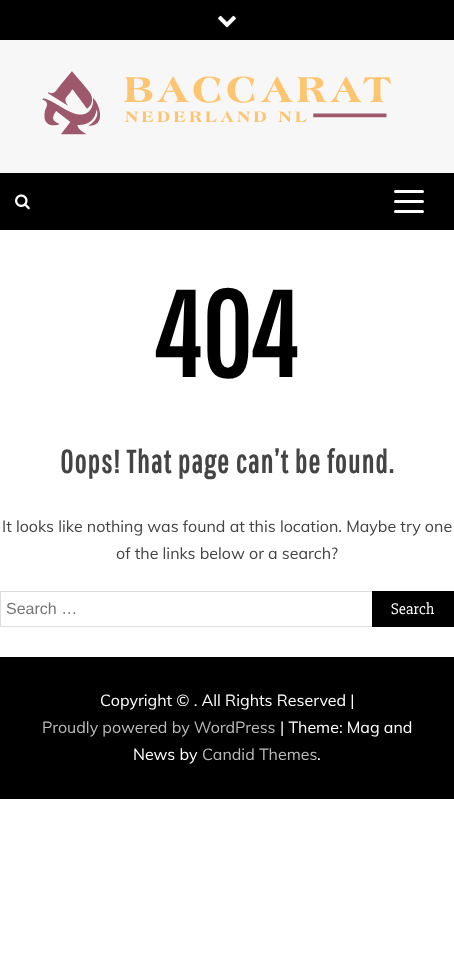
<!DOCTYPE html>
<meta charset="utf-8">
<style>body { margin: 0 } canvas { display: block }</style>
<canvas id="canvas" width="454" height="966"></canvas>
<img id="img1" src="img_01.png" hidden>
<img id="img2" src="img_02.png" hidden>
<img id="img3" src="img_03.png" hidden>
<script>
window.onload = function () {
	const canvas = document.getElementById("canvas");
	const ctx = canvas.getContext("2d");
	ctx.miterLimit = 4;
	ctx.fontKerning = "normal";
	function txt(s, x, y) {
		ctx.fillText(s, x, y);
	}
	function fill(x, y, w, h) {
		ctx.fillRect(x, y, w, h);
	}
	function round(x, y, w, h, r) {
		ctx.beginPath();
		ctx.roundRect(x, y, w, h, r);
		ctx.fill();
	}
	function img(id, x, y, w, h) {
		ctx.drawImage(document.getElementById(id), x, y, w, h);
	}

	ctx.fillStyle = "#FFFFFF";
	fill(0, 0, 454, 966);
	ctx.fillStyle = "#000000";
	fill(0, 0, 454, 40);
	img("img1", 218, 15, 18, 13);
	ctx.fillStyle = "#F7F7F7";
	fill(0, 40, 454, 133);
	img("img2", 42, 71, 350, 64);
	ctx.fillStyle = "#000000";
	fill(0, 173, 454, 57);
	img("img3", 15, 194, 15, 16);
	ctx.fillStyle = "#FFFFFF";
	round(394, 190, 30, 3, 1.5);
	round(394, 200, 30, 3, 1.5);
	round(394, 210, 30, 3, 1.5);
	ctx.strokeStyle = "#DDDDDD";
	ctx.strokeRect(0.5, 591.5, 453, 35);
	ctx.fillStyle = "#000000";
	fill(372, 591, 82, 36);
	fill(0, 657, 454, 142);
	ctx.letterSpacing = "1px";
	ctx.font = "bold 120px Pathway Gothic One";
	txt("404", 155, 377);
	ctx.font = "bold 32px Pathway Gothic One";
	ctx.fillStyle = "#444444";
	txt("Oops! That page can’t be found.", 60, 473);
	ctx.letterSpacing = "0px";
	ctx.font = "16px Muli";
	txt("It looks like nothing was found at this location. Maybe try one", 2, 532);
	txt("of the links below or a search?", 116, 559);
	ctx.font = "16px Liberation Sans";
	ctx.fillStyle = "#757575";
	txt("Search …", 6, 614);
	ctx.font = "16px 'Slabo 27px'";
	ctx.fillStyle = "#FFFFFF";
	txt("Search", 391, 614);
	ctx.font = "16px Muli";
	txt("Copyright © . All Rights Reserved |", 100, 706);
	ctx.fillStyle = "#BBBBBB";
	txt("Proudly powered by WordPress", 42, 733);
	ctx.fillStyle = "#FFFFFF";
	txt("| Theme: Mag and", 280, 733);
	txt("News by", 133, 760);
	ctx.fillStyle = "#BBBBBB";
	txt("Candid Themes", 202, 760);
	ctx.fillStyle = "#FFFFFF";
	txt(".", 317, 760);
};
</script>
